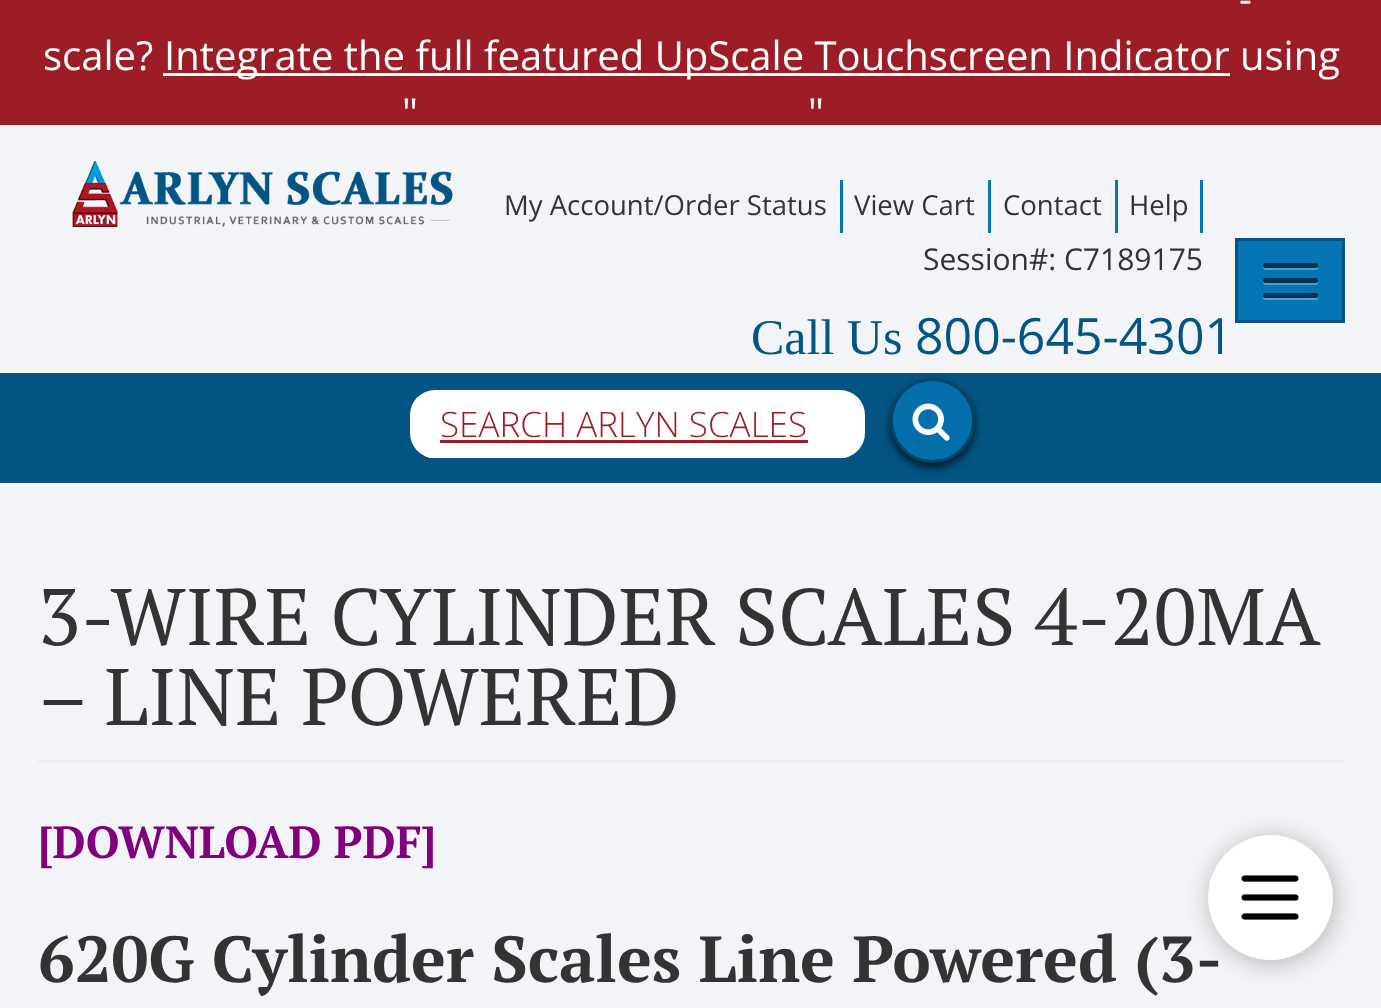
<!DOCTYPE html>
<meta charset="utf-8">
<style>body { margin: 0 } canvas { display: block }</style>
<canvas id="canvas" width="1381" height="1008"></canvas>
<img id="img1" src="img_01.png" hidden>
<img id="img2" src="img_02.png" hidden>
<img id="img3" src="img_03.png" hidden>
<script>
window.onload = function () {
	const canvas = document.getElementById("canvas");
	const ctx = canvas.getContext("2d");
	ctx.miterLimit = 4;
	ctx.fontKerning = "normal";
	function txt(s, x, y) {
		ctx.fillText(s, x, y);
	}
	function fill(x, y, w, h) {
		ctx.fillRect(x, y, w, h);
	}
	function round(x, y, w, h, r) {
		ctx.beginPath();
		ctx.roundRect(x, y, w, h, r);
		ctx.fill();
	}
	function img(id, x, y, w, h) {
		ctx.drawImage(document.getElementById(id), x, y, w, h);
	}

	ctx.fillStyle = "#F2F4F7";
	fill(0, 0, 1381, 1008);
	ctx.fillStyle = "#9D1D26";
	fill(0, 0, 1381, 125);
	ctx.fillStyle = "#FFFFFF";
	fill(163, 73, 1067, 3);
	img("img1", 72, 161, 381, 66);
	ctx.fillStyle = "#0675B6";
	fill(840, 180, 3, 53);
	fill(988, 180, 3, 53);
	fill(1115, 180, 3, 53);
	fill(1200, 180, 3, 53);
	ctx.beginPath();
	ctx.rect(1236.5, 239.5, 107, 82);
	ctx.fill();
	ctx.strokeStyle = "#045584";
	ctx.lineWidth = 3;
	ctx.stroke();
	ctx.fillStyle = "#519ECC";
	ctx.beginPath();
	ctx.moveTo(1263, 267);
	ctx.bezierCurveTo(1262, 271, 1269, 270, 1274, 270);
	ctx.lineTo(1316, 270);
	ctx.bezierCurveTo(1318, 270, 1319, 267, 1317, 266);
	ctx.lineTo(1316, 267);
	ctx.bezierCurveTo(1315, 268, 1269, 268, 1265, 267);
	ctx.closePath();
	ctx.fill();
	ctx.fillStyle = "#033553";
	round(1263, 263, 55, 5, 2.5);
	ctx.fillStyle = "#519ECC";
	ctx.beginPath();
	ctx.moveTo(1263, 282);
	ctx.bezierCurveTo(1262, 286, 1269, 285, 1274, 285);
	ctx.lineTo(1316, 285);
	ctx.bezierCurveTo(1318, 285, 1319, 282, 1317, 281);
	ctx.lineTo(1316, 282);
	ctx.bezierCurveTo(1315, 283, 1269, 283, 1265, 282);
	ctx.closePath();
	ctx.fill();
	ctx.fillStyle = "#033553";
	round(1263, 278, 55, 5, 2.5);
	ctx.fillStyle = "#519ECC";
	ctx.beginPath();
	ctx.moveTo(1263, 297);
	ctx.bezierCurveTo(1262, 301, 1269, 300, 1274, 300);
	ctx.lineTo(1316, 300);
	ctx.bezierCurveTo(1318, 300, 1319, 297, 1317, 296);
	ctx.lineTo(1316, 297);
	ctx.bezierCurveTo(1315, 298, 1269, 298, 1265, 297);
	ctx.closePath();
	ctx.fill();
	ctx.fillStyle = "#033553";
	round(1263, 293, 55, 5, 2.5);
	ctx.fillStyle = "#045584";
	fill(0, 373, 1381, 110);
	ctx.fillStyle = "#FFFFFF";
	round(410, 390, 455, 68, 25);
	ctx.beginPath();
	ctx.moveTo(845, 458);
	ctx.bezierCurveTo(856, 455, 865, 444, 865, 432);
	ctx.bezierCurveTo(865, 445, 854, 455, 840, 455);
	ctx.lineTo(435, 455);
	ctx.bezierCurveTo(421, 455, 410, 445, 410, 432);
	ctx.bezierCurveTo(410, 444, 419, 455, 430, 458);
	ctx.closePath();
	ctx.fill();
	ctx.fillStyle = "#9D1D26";
	fill(440, 440, 368, 3);
	ctx.fillStyle = "rgba(0, 0, 0, 0.7)";
	ctx.filter = "blur(5px)";
	ctx.beginPath();
	ctx.roundRect(890, 383, 85, 85, 42.5);
	ctx.fill();
	ctx.filter = "none";
	ctx.fillStyle = "#056FAC";
	ctx.beginPath();
	ctx.arc(932.5, 420.5, 41, 0, Math.PI * 2);
	ctx.fill();
	ctx.strokeStyle = "#03456B";
	ctx.stroke();
	img("img2", 912, 403, 38, 38);
	ctx.fillStyle = "#EEEEEE";
	fill(38, 760, 1307, 3);
	ctx.fillStyle = "#B4B4B4";
	ctx.filter = "blur(12.5px)";
	ctx.beginPath();
	ctx.roundRect(1210, 838, 125, 125, 62.5);
	ctx.fill();
	ctx.filter = "none";
	ctx.font = "40px Open Sans";
	ctx.fillStyle = "#FFFFFF";
	txt("-", 1239, 13);
	txt("scale?", 43, 70);
	txt("Integrate the full featured UpScale Touchscreen Indicator using", 164, 70);
	txt("\"", 402, 127);
	txt("\"", 808, 127);
	ctx.font = "27.5px Open Sans";
	ctx.fillStyle = "#333333";
	txt("My Account/Order Status", 504, 215);
	txt("View Cart", 854, 215);
	txt("Contact", 1003, 215);
	txt("Help", 1129, 215);
	ctx.font = "30px Open Sans";
	txt("Session#: C7189175", 923, 270);
	ctx.font = "50px Liberation Serif";
	ctx.fillStyle = "#045584";
	txt("Call Us", 751, 354);
	ctx.font = "50px Open Sans";
	txt("800-645-4301", 915, 354);
	ctx.font = "300 35px Open Sans";
	ctx.fillStyle = "#9D1D26";
	txt("SEARCH ARLYN SCALES", 440, 437);
	ctx.wordSpacing = "-0.5px";
	ctx.font = "80px PT Serif";
	ctx.fillStyle = "#333333";
	txt("3-WIRE CYLINDER SCALES 4-20MA", 38, 645);
	ctx.wordSpacing = "0px";
	txt("– LINE POWERED", 38, 725);
	ctx.font = "bold 45px PT Serif";
	ctx.fillStyle = "#800080";
	txt("[DOWNLOAD PDF]", 38, 858);
	ctx.font = "bold 65px PT Serif";
	ctx.fillStyle = "#333333";
	txt("620G Cylinder Scales Line Powered (3-", 38, 982);
	ctx.fillStyle = "#FFFFFF";
	ctx.beginPath();
	ctx.arc(1270.5, 897.5, 62.5, 0, Math.PI * 2);
	ctx.fill();
	img("img3", 1241, 875, 58, 45);
};
</script>
